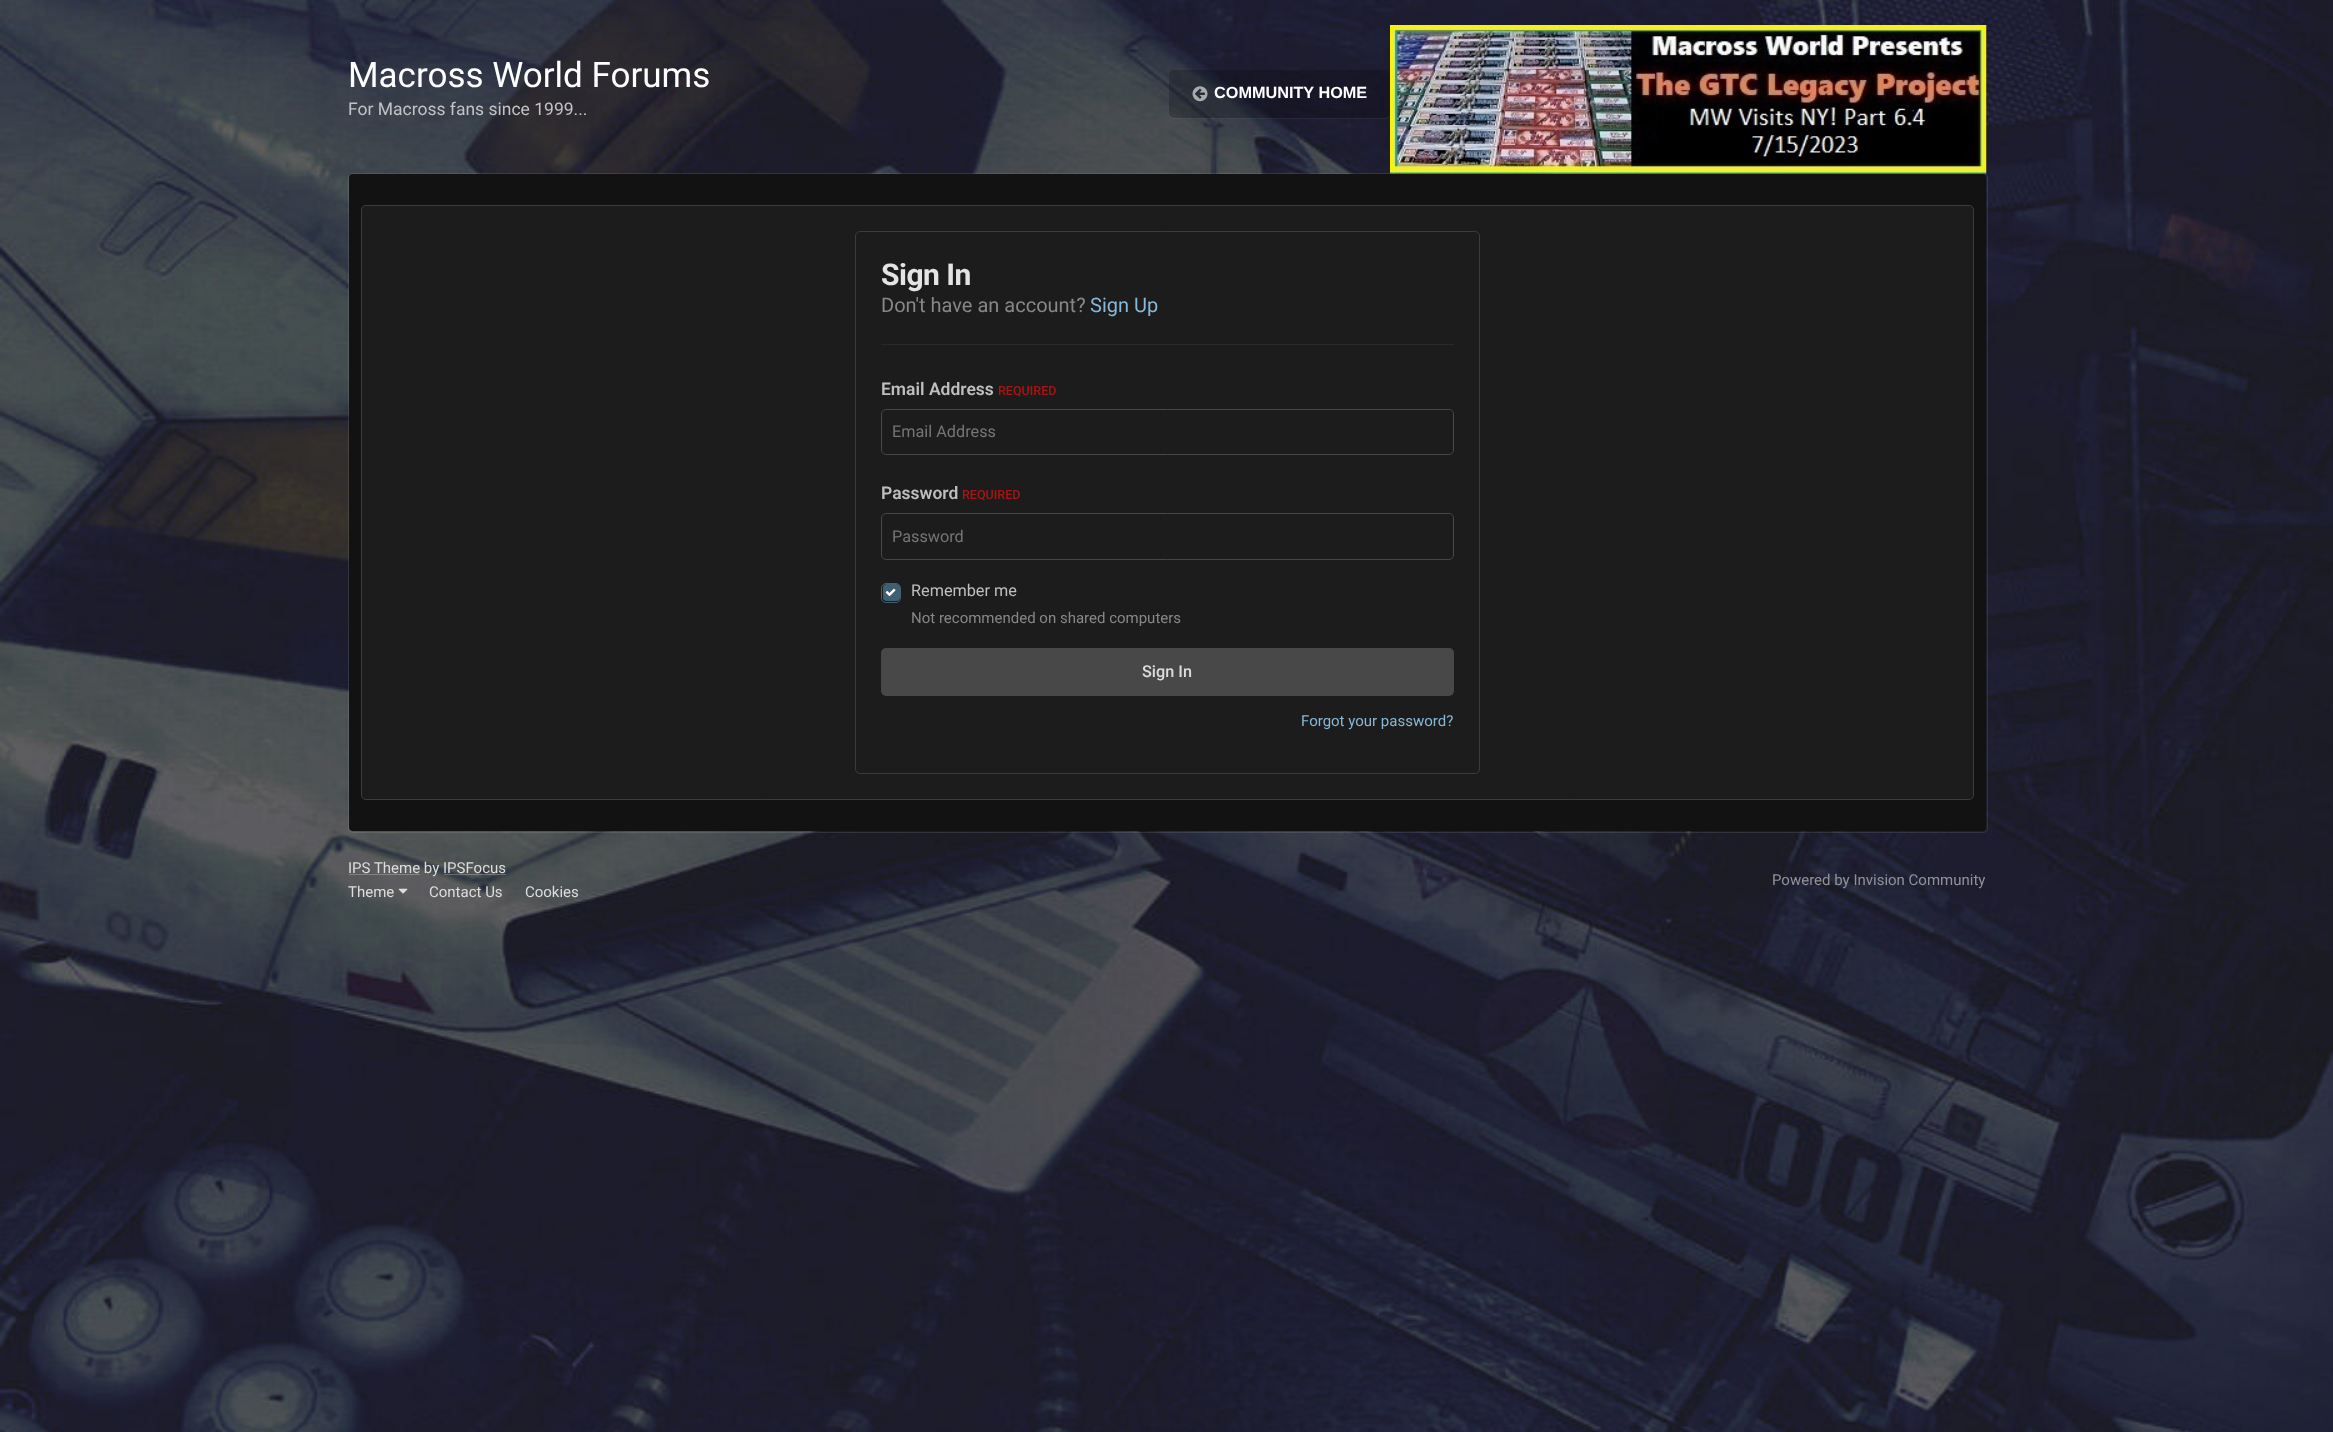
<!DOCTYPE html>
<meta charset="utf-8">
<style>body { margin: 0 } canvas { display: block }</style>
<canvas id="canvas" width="2333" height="1432"></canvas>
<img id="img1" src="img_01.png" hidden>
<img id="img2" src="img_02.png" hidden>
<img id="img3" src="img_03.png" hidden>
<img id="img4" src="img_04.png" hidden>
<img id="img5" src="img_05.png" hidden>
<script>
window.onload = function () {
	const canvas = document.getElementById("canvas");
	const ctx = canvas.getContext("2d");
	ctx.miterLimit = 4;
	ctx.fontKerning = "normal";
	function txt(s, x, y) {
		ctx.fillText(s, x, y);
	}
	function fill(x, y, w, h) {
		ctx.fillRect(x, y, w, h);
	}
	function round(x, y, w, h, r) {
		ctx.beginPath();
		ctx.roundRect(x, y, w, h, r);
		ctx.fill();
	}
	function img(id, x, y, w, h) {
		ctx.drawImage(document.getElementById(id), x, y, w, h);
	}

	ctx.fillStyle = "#FFFFFF";
	fill(0, 0, 2333, 1432);
	img("img1", 0, 0, 2333, 1432);
	ctx.fillStyle = "rgba(255, 255, 255, 0.05)";
	ctx.beginPath();
	ctx.moveTo(1169, 114);
	ctx.bezierCurveTo(1169, 117, 1171, 119, 1174, 119);
	ctx.lineTo(1385, 119);
	ctx.bezierCurveTo(1389, 119, 1390, 116, 1390, 112);
	ctx.bezierCurveTo(1390, 115, 1388, 118, 1385, 118);
	ctx.lineTo(1174, 118);
	ctx.bezierCurveTo(1172, 118, 1170, 116, 1169, 114);
	ctx.closePath();
	ctx.fill();
	ctx.fillStyle = "rgba(0, 0, 0, 0.2)";
	round(1169, 70, 221, 48, 5);
	img("img2", 1192, 86, 16, 16);
	ctx.beginPath();
	ctx.roundRect(348.5, 173.5, 1639, 659, 4.5);
	ctx.strokeStyle = "rgba(255, 255, 255, 0.1)";
	ctx.stroke();
	img("img3", 1390, 25, 597, 149);
	ctx.fillStyle = "#121212";
	round(349, 174, 1637, 657, 4);
	ctx.fillStyle = "#1C1C1C";
	round(361, 205, 1613, 595, 5);
	ctx.beginPath();
	ctx.roundRect(361.5, 205.5, 1612, 594, 4.5);
	ctx.strokeStyle = "rgba(191, 191, 191, 0.2)";
	ctx.stroke();
	ctx.beginPath();
	ctx.roundRect(855.5, 231.5, 624, 542, 4.5);
	ctx.strokeStyle = "#3C3C3C";
	ctx.stroke();
	ctx.fillStyle = "#292929";
	fill(881, 344, 573, 1);
	ctx.beginPath();
	ctx.roundRect(881.5, 409.5, 572, 45, 4.5);
	ctx.strokeStyle = "#474747";
	ctx.stroke();
	ctx.beginPath();
	ctx.roundRect(881.5, 513.5, 572, 46, 4.5);
	ctx.stroke();
	ctx.fillStyle = "#415F72";
	round(883, 584, 17, 17, 4);
	ctx.beginPath();
	ctx.roundRect(881.5, 583.5, 19, 19, 4.5);
	ctx.strokeStyle = "#415F72";
	ctx.stroke();
	img("img4", 885, 588, 11, 9);
	ctx.fillStyle = "#484848";
	round(881, 648, 573, 48, 5);
	ctx.fillStyle = "rgba(221, 221, 221, 0.3)";
	fill(349, 874, 71, 1);
	img("img5", 398, 888, 10, 6);
	ctx.font = "35px Roboto";
	ctx.fillStyle = "#FFFFFF";
	txt("Macross World Forums", 348, 87);
	ctx.font = "17.5px Roboto";
	ctx.fillStyle = "#C2C3C6";
	txt("For Macross fans since 1999...", 348, 115);
	ctx.font = "bold 16.25px Liberation Sans";
	ctx.fillStyle = "#FFFFFF";
	txt("COMMUNITY HOME", 1214, 98);
	ctx.letterSpacing = "-0.5px";
	ctx.font = "bold 30px Roboto";
	ctx.fillStyle = "#E3E3E3";
	txt("Sign In", 881, 285);
	ctx.letterSpacing = "0px";
	ctx.font = "20px Roboto";
	ctx.fillStyle = "#878787";
	txt("Don't have an account?", 881, 312);
	ctx.fillStyle = "#87B8D7";
	txt("Sign Up", 1090, 312);
	ctx.font = "600 17.5px Roboto";
	ctx.fillStyle = "#BFBFBF";
	txt("Email Address", 881, 395);
	ctx.font = "500 12.5px Roboto";
	ctx.fillStyle = "#AA1414";
	txt("REQUIRED", 998, 395);
	ctx.font = "16.25px Roboto";
	ctx.fillStyle = "#757575";
	txt("Email Address", 892, 437);
	ctx.font = "600 17.5px Roboto";
	ctx.fillStyle = "#BFBFBF";
	txt("Password", 881, 499);
	ctx.font = "500 12.5px Roboto";
	ctx.fillStyle = "#AA1414";
	txt("REQUIRED", 962, 499);
	ctx.font = "16.25px Roboto";
	ctx.fillStyle = "#757575";
	txt("Password", 892, 542);
	ctx.fillStyle = "#BFBFBF";
	txt("Remember me", 911, 596);
	ctx.font = "15px Roboto";
	ctx.fillStyle = "#878787";
	txt("Not recommended on shared computers", 911, 623);
	ctx.font = "500 16.25px Roboto";
	ctx.fillStyle = "#DDDDDD";
	txt("Sign In", 1142, 677);
	ctx.font = "15px Roboto";
	ctx.fillStyle = "#87B8D7";
	txt("Forgot your password?", 1301, 726);
	ctx.fillStyle = "#DDDDDD";
	txt("IPS Theme by IPSFocus", 348, 873);
	ctx.fillStyle = "rgba(221, 221, 221, 0.3)";
	fill(444, 874, 62, 1);
	ctx.fillStyle = "#DDDDDD";
	txt("Theme", 348, 897);
	txt("Contact Us", 429, 897);
	txt("Cookies", 525, 897);
	ctx.fillStyle = "#919199";
	txt("Powered by Invision Community", 1772, 885);
};
</script>
